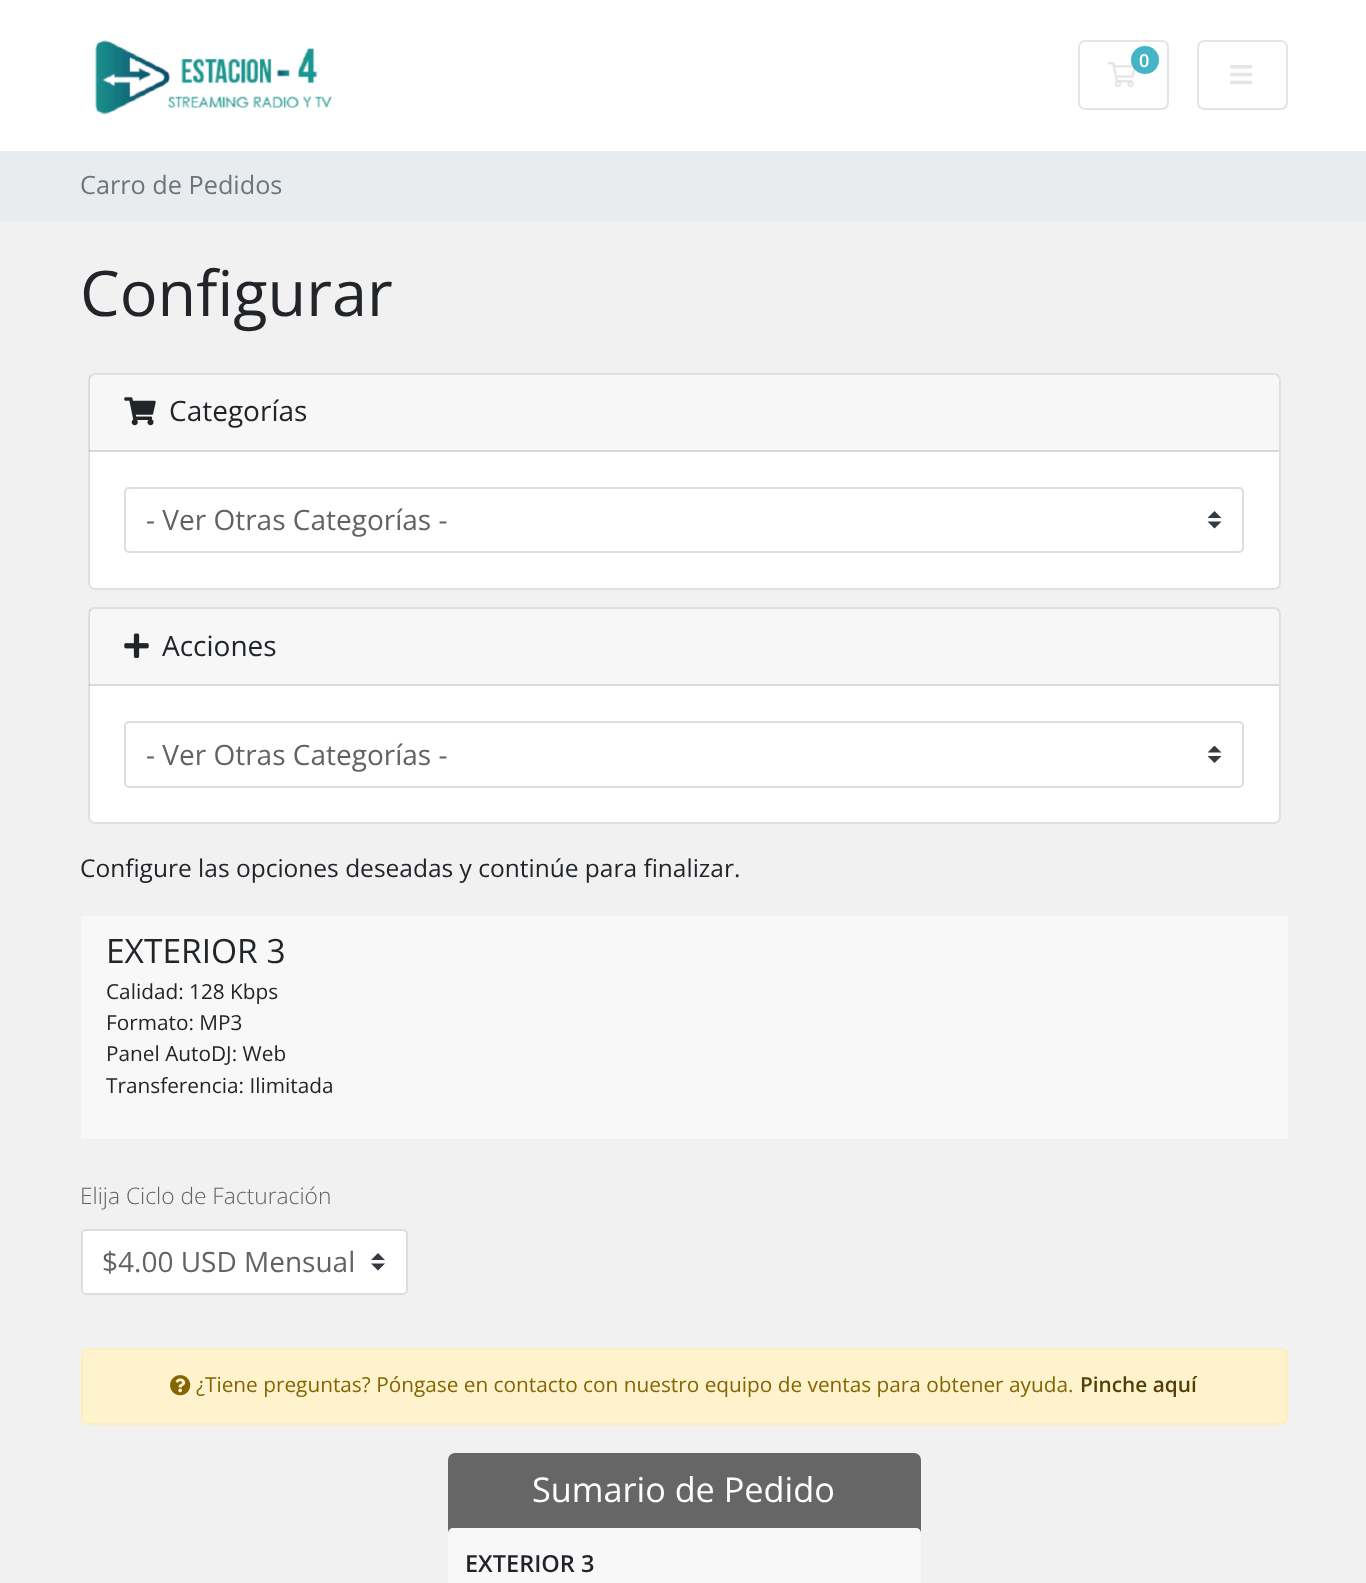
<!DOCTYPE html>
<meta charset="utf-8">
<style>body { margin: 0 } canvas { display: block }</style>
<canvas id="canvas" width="1366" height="1583"></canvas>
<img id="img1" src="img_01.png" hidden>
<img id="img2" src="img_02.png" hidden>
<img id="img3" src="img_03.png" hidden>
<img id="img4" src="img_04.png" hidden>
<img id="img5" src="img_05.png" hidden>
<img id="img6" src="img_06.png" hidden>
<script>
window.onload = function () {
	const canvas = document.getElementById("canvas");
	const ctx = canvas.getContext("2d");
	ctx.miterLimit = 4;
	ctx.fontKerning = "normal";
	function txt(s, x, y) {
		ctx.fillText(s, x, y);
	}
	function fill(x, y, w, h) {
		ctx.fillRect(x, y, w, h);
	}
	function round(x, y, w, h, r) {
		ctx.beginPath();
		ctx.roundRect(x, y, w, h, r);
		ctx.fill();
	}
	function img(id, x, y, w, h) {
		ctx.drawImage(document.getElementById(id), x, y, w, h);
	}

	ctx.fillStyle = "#F1F1F1";
	fill(0, 0, 1366, 1583);
	ctx.fillStyle = "#FFFFFF";
	fill(0, 0, 1366, 151);
	img("img1", 94, 40, 238, 75);
	ctx.beginPath();
	ctx.roundRect(1079, 41, 89, 68, 6);
	ctx.strokeStyle = "#E5E5E5";
	ctx.lineWidth = 2;
	ctx.stroke();
	img("img2", 1107, 62, 29, 25);
	ctx.fillStyle = "rgba(23, 162, 184, 0.8)";
	ctx.beginPath();
	ctx.arc(1145, 60, 14, 0, Math.PI * 2);
	ctx.fill();
	ctx.beginPath();
	ctx.roundRect(1198, 41, 89, 68, 6);
	ctx.stroke();
	img("img3", 1230, 65, 23, 20);
	ctx.fillStyle = "#E9ECEF";
	fill(0, 151, 1366, 70);
	ctx.fillStyle = "#FFFFFF";
	round(88, 373, 1193, 217, 7);
	ctx.beginPath();
	ctx.roundRect(89, 374, 1191, 215, 6);
	ctx.strokeStyle = "rgba(0, 0, 0, 0.12)";
	ctx.stroke();
	ctx.fillStyle = "rgba(0, 0, 0, 0.03)";
	fill(89, 375, 1190, 77);
	ctx.fillStyle = "rgba(0, 0, 0, 0.12)";
	fill(89, 450, 1190, 2);
	img("img4", 124, 397, 32, 29);
	ctx.fillStyle = "#343A40";
	ctx.beginPath();
	ctx.moveTo(1214.5, 511);
	ctx.lineTo(1207.5, 518);
	ctx.lineTo(1221.5, 518);
	ctx.closePath();
	ctx.moveTo(1214.5, 528.5);
	ctx.lineTo(1207.5, 521.5);
	ctx.lineTo(1221.5, 521.5);
	ctx.closePath();
	ctx.fill();
	ctx.beginPath();
	ctx.roundRect(125, 488, 1118, 64, 4);
	ctx.strokeStyle = "#DDDDDD";
	ctx.stroke();
	ctx.fillStyle = "#FFFFFF";
	round(88, 607, 1193, 217, 7);
	ctx.beginPath();
	ctx.roundRect(89, 608, 1191, 215, 6);
	ctx.strokeStyle = "rgba(0, 0, 0, 0.12)";
	ctx.stroke();
	ctx.fillStyle = "rgba(0, 0, 0, 0.03)";
	fill(89, 609, 1190, 77);
	ctx.fillStyle = "rgba(0, 0, 0, 0.12)";
	fill(89, 684, 1190, 2);
	img("img5", 124, 633, 25, 25);
	ctx.save();
	ctx.beginPath();
	ctx.rect(1208, 746, 14, 17);
	ctx.clip();
	ctx.fillStyle = "#343A40";
	ctx.beginPath();
	ctx.moveTo(1214.5, 745.5);
	ctx.lineTo(1207.5, 752.5);
	ctx.lineTo(1221.5, 752.5);
	ctx.closePath();
	ctx.moveTo(1214.5, 763);
	ctx.lineTo(1207.5, 756);
	ctx.lineTo(1221.5, 756);
	ctx.closePath();
	ctx.fill();
	ctx.restore();
	ctx.beginPath();
	ctx.roundRect(125, 722, 1118, 65, 4);
	ctx.strokeStyle = "#DDDDDD";
	ctx.stroke();
	ctx.fillStyle = "#F8F8F8";
	fill(81, 916, 1207, 223);
	ctx.fillStyle = "#FFFFFF";
	round(81, 1229, 327, 66, 5);
	ctx.fillStyle = "#343A40";
	ctx.beginPath();
	ctx.moveTo(378, 1253);
	ctx.lineTo(371, 1260);
	ctx.lineTo(385, 1260);
	ctx.closePath();
	ctx.moveTo(378, 1270.5);
	ctx.lineTo(371, 1263.5);
	ctx.lineTo(385, 1263.5);
	ctx.closePath();
	ctx.fill();
	ctx.beginPath();
	ctx.roundRect(82, 1230, 325, 64, 4);
	ctx.stroke();
	ctx.fillStyle = "#FFF3CD";
	ctx.beginPath();
	ctx.roundRect(82, 1349, 1205, 75, 6);
	ctx.fill();
	ctx.strokeStyle = "#FFEEBA";
	ctx.stroke();
	img("img6", 170, 1375, 21, 21);
	ctx.fillStyle = "#666666";
	round(448, 1453, 473, 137, 7);
	ctx.fillStyle = "#F8F8F8";
	round(448, 1528, 473, 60, 5);
	ctx.font = "600 18px Open Sans";
	ctx.fillStyle = "#FFFFFF";
	txt("0", 1139, 67);
	ctx.font = "25.25px Open Sans";
	ctx.fillStyle = "#6C757D";
	txt("Carro de Pedidos", 80, 194);
	ctx.font = "63px Open Sans";
	ctx.fillStyle = "#212529";
	txt("Configurar", 80, 316);
	ctx.font = "28px Open Sans";
	txt("Categorías", 169, 421);
	ctx.fillStyle = "#626262";
	txt("- Ver Otras Categorías -", 146, 530);
	ctx.fillStyle = "#212529";
	txt("Acciones", 162, 656);
	ctx.fillStyle = "#626262";
	txt("- Ver Otras Categorías -", 146, 765);
	ctx.font = "24.5px Open Sans";
	ctx.fillStyle = "#212529";
	txt("Configure las opciones deseadas y continúe para finalizar.", 80, 877);
	ctx.font = "33.5px Open Sans";
	txt("EXTERIOR 3", 106, 963);
	ctx.font = "20.8px Open Sans";
	txt("Calidad: 128 Kbps", 106, 999);
	txt("Formato: MP3", 106, 1030);
	txt("Panel AutoDJ: Web", 106, 1061);
	txt("Transferencia: Ilimitada", 106, 1093);
	ctx.font = "300 22.75px Open Sans";
	ctx.fillStyle = "#626262";
	txt("Elija Ciclo de Facturación", 80, 1204);
	ctx.font = "28px Open Sans";
	txt("$4.00 USD Mensual", 102, 1272);
	ctx.font = "20.8px Open Sans";
	ctx.fillStyle = "#856404";
	txt("¿Tiene preguntas? Póngase en contacto con nuestro equipo de ventas para obtener ayuda.", 196, 1392);
	ctx.font = "600 20.8px Open Sans";
	ctx.fillStyle = "#533F03";
	txt("Pinche aquí", 1080, 1392);
	ctx.font = "34.25px Open Sans";
	ctx.fillStyle = "#FFFFFF";
	txt("Sumario de Pedido", 532, 1502);
	ctx.font = "600 23.5px Open Sans";
	ctx.fillStyle = "#212529";
	txt("EXTERIOR 3", 465, 1572);
};
</script>
